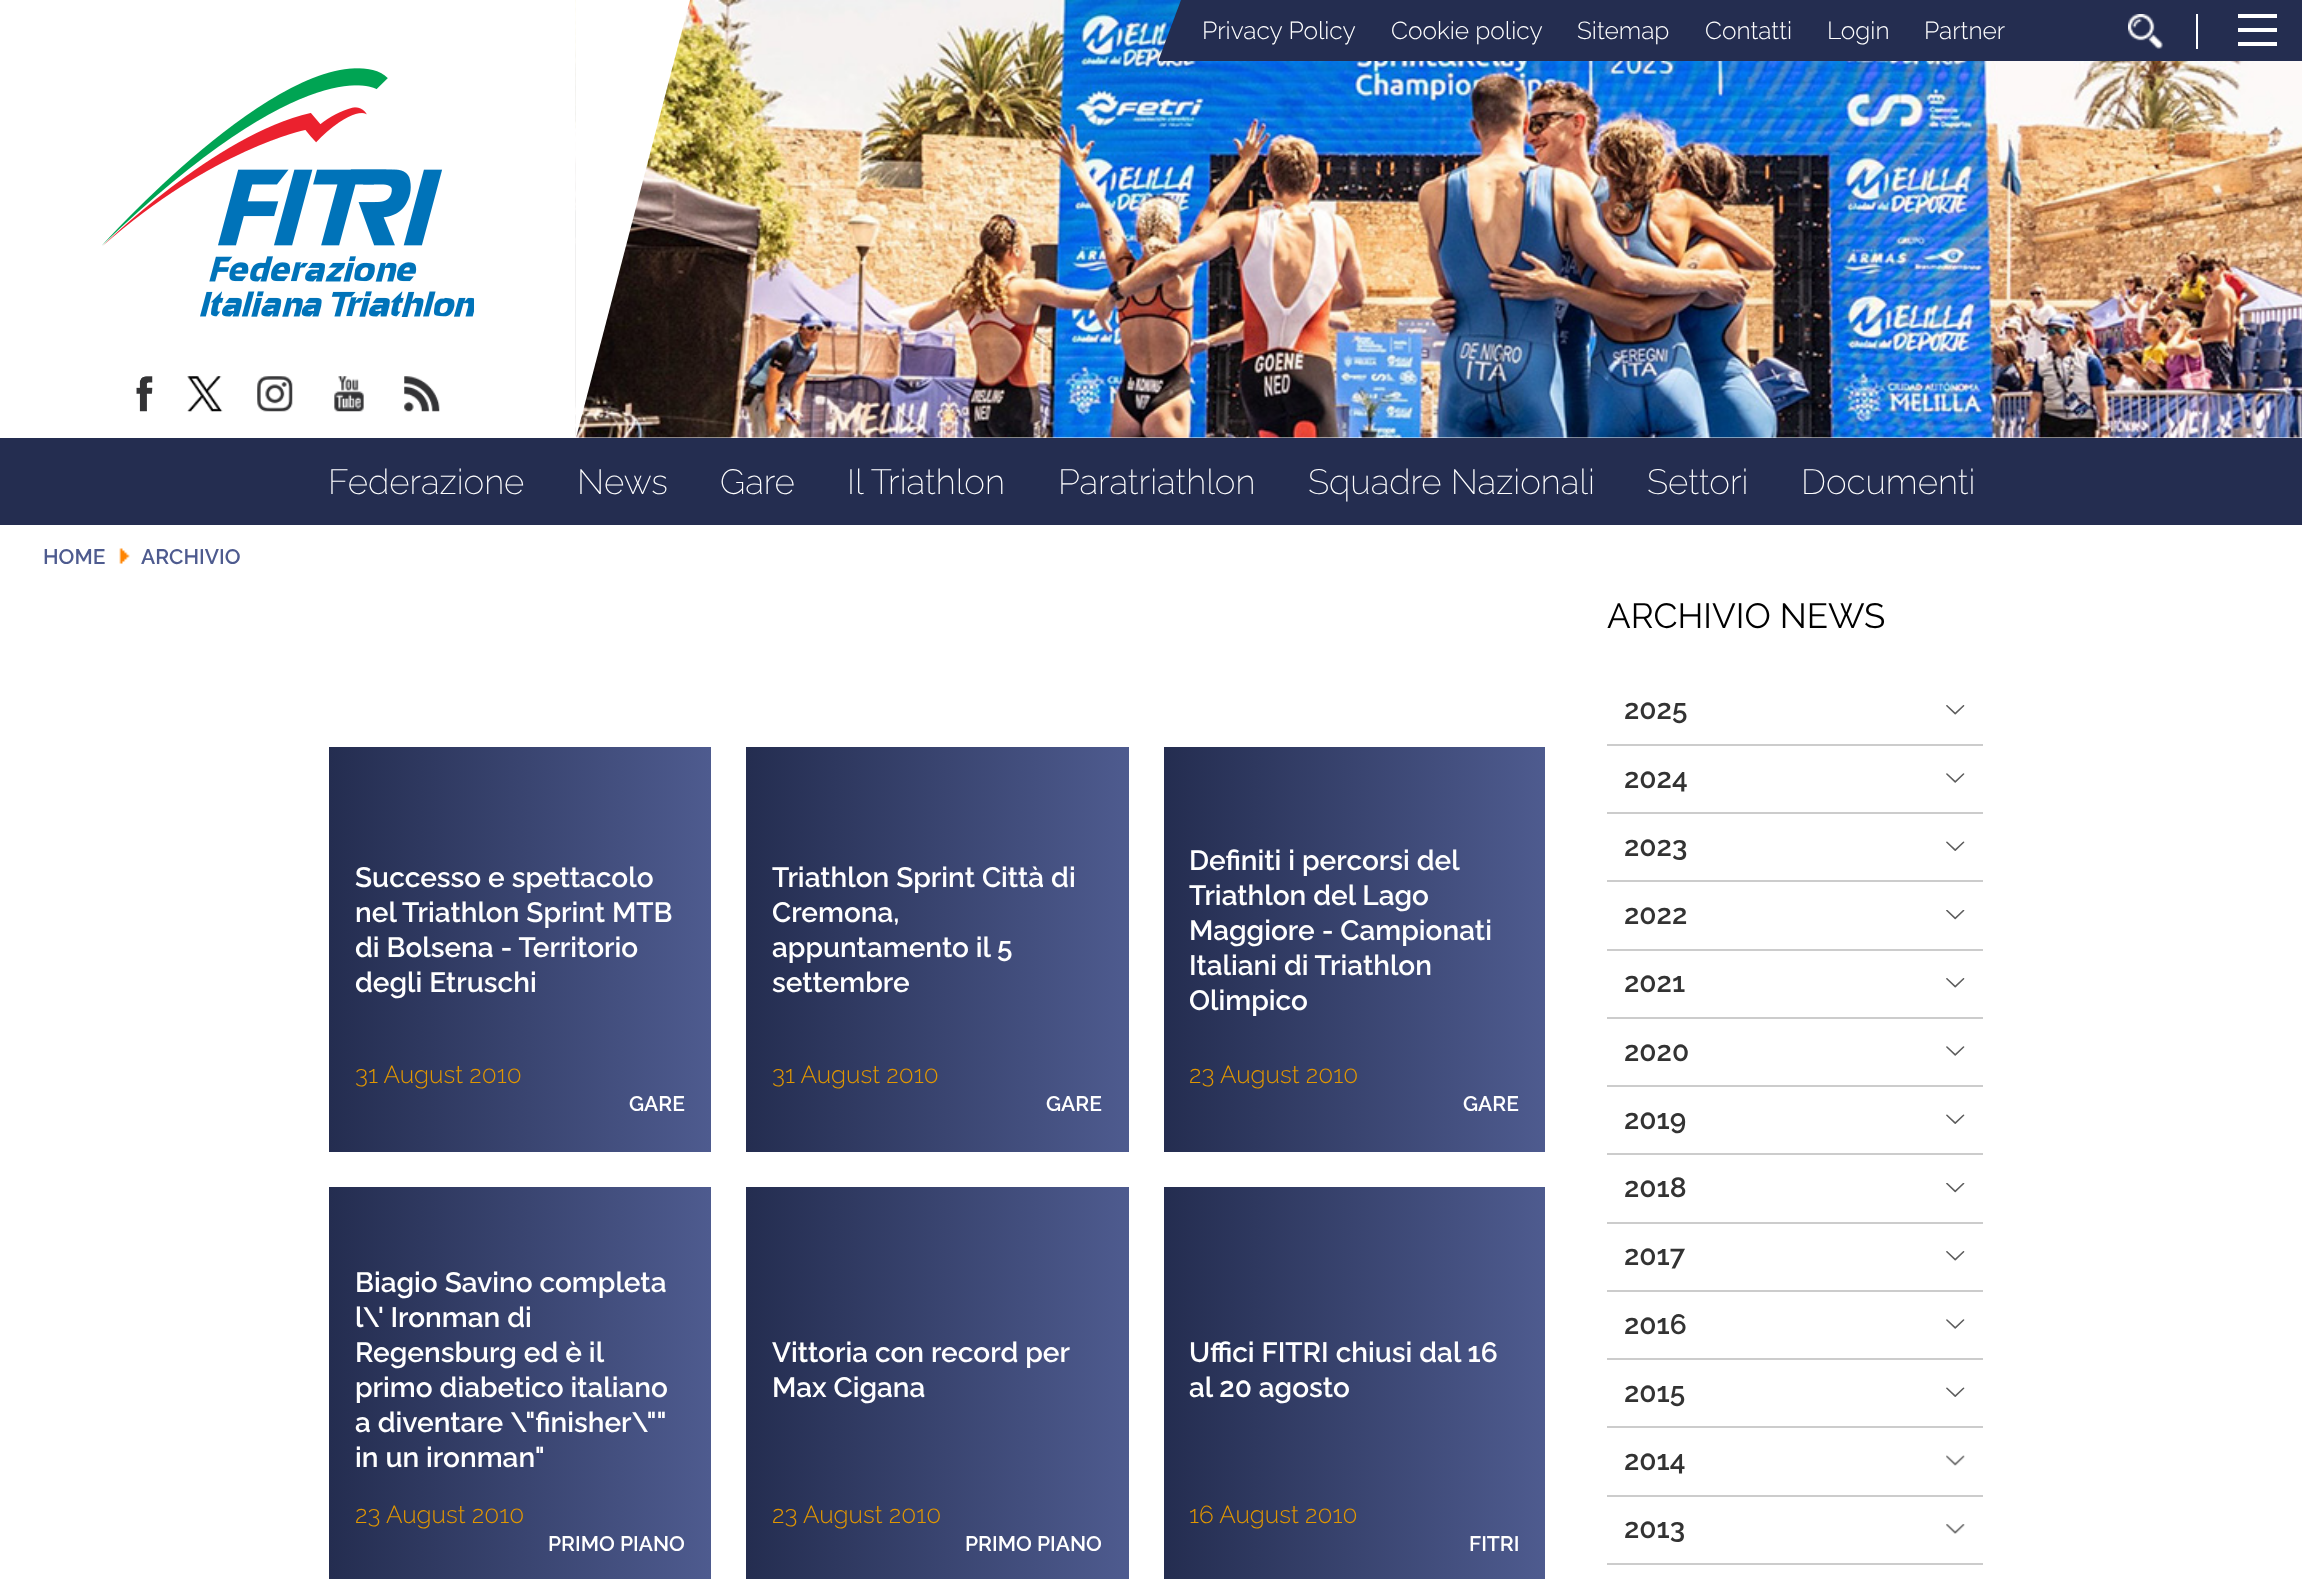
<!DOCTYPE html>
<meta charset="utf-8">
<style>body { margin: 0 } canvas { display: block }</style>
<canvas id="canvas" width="2302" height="1579"></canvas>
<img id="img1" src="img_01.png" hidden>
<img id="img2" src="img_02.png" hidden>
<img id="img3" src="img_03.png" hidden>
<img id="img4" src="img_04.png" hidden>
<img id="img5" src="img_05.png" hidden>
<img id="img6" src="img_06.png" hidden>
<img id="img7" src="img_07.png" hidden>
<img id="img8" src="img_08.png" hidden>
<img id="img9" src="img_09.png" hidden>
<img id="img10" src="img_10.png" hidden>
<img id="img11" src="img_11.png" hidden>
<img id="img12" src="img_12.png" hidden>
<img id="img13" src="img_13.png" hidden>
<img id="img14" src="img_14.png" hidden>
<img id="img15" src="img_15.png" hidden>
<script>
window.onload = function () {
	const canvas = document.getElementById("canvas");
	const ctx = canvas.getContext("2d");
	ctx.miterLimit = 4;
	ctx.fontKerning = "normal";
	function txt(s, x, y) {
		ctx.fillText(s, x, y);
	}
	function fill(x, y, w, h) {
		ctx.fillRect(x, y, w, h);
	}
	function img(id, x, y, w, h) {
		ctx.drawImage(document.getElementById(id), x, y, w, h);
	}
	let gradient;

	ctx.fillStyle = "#FFFFFF";
	fill(0, 0, 2302, 1579);
	img("img1", 575, 0, 1727, 438);
	ctx.beginPath();
	ctx.moveTo(576, 0);
	ctx.lineTo(690, 0);
	ctx.lineTo(576, 438);
	ctx.closePath();
	ctx.fill();
	ctx.fillStyle = "#242D50";
	ctx.beginPath();
	ctx.moveTo(1159, 59);
	ctx.lineTo(1159, 61);
	ctx.lineTo(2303, 61);
	ctx.lineTo(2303, 0);
	ctx.lineTo(1181, 0);
	ctx.closePath();
	ctx.fill();
	img("img2", 2128, 14, 35, 35);
	ctx.fillStyle = "#FFFFFF";
	fill(2196, 14, 2, 35);
	fill(2238, 14, 39, 4);
	fill(2238, 28, 39, 4);
	fill(2238, 42, 39, 4);
	img("img3", 102, 68, 372, 249);
	img("img4", 136, 376, 17, 36);
	img("img5", 187, 376, 36, 36);
	img("img6", 257, 376, 36, 36);
	img("img7", 334, 376, 30, 36);
	img("img8", 404, 376, 36, 36);
	ctx.fillStyle = "#242D50";
	fill(0, 438, 2302, 87);
	img("img9", 119, 548, 11, 16);
	gradient = ctx.createLinearGradient(329, 949, 711, 949);
	gradient.addColorStop(0, "#242D50");
	gradient.addColorStop(1, "#4E5B8F");
	ctx.fillStyle = gradient;
	fill(329, 747, 382, 405);
	gradient = ctx.createLinearGradient(746, 949, 1129, 949);
	gradient.addColorStop(0, "#242D50");
	gradient.addColorStop(1, "#4E5B8F");
	ctx.fillStyle = gradient;
	fill(746, 747, 383, 405);
	gradient = ctx.createLinearGradient(1164, 949, 1545, 949);
	gradient.addColorStop(0, "#242D50");
	gradient.addColorStop(1, "#4E5B8F");
	ctx.fillStyle = gradient;
	fill(1164, 747, 381, 405);
	gradient = ctx.createLinearGradient(329, 1389, 711, 1389);
	gradient.addColorStop(0, "#242D50");
	gradient.addColorStop(1, "#4E5B8F");
	ctx.fillStyle = gradient;
	fill(329, 1187, 382, 392);
	gradient = ctx.createLinearGradient(746, 1389, 1129, 1389);
	gradient.addColorStop(0, "#242D50");
	gradient.addColorStop(1, "#4E5B8F");
	ctx.fillStyle = gradient;
	fill(746, 1187, 383, 392);
	gradient = ctx.createLinearGradient(1164, 1389, 1545, 1389);
	gradient.addColorStop(0, "#242D50");
	gradient.addColorStop(1, "#4E5B8F");
	ctx.fillStyle = gradient;
	fill(1164, 1187, 381, 392);
	ctx.fillStyle = "#CCCCCC";
	fill(1607, 744, 376, 2);
	img("img10", 1946, 705, 19, 10);
	fill(1607, 812, 376, 2);
	img("img11", 1946, 773, 19, 10);
	fill(1607, 880, 376, 2);
	img("img12", 1946, 841, 19, 10);
	fill(1607, 949, 376, 2);
	img("img13", 1946, 910, 19, 10);
	fill(1607, 1017, 376, 2);
	img("img10", 1946, 978, 19, 10);
	fill(1607, 1085, 376, 2);
	img("img11", 1946, 1046, 19, 10);
	fill(1607, 1153, 376, 2);
	img("img12", 1946, 1114, 19, 10);
	fill(1607, 1222, 376, 2);
	img("img13", 1946, 1183, 19, 10);
	fill(1607, 1290, 376, 2);
	img("img10", 1946, 1251, 19, 10);
	fill(1607, 1358, 376, 2);
	img("img11", 1946, 1319, 19, 10);
	fill(1607, 1426, 376, 2);
	img("img12", 1946, 1387, 19, 10);
	fill(1607, 1495, 376, 2);
	img("img14", 1946, 1455, 19, 11);
	fill(1607, 1563, 376, 2);
	img("img15", 1946, 1524, 19, 10);
	ctx.font = "300 24.5px Raleway";
	ctx.fillStyle = "#FFFFFF";
	txt("Privacy Policy", 1202, 39);
	txt("Cookie policy", 1391, 39);
	txt("Sitemap", 1577, 39);
	txt("Contatti", 1705, 39);
	txt("Login", 1827, 39);
	txt("Partner", 1924, 39);
	ctx.font = "200 35px Raleway";
	txt("Federazione", 328, 494);
	txt("News", 577, 494);
	txt("Gare", 720, 494);
	txt("Il Triathlon", 847, 494);
	txt("Paratriathlon", 1058, 494);
	txt("Squadre Nazionali", 1308, 494);
	txt("Settori", 1647, 494);
	txt("Documenti", 1801, 494);
	ctx.font = "600 21px Raleway";
	ctx.fillStyle = "#4E5B8F";
	txt("HOME", 43, 564);
	txt("ARCHIVIO", 141, 564);
	ctx.font = "600 28px Raleway";
	ctx.fillStyle = "#FFFFFF";
	txt("Successo e spettacolo", 355, 887);
	txt("nel Triathlon Sprint MTB", 355, 922);
	txt("di Bolsena - Territorio", 355, 957);
	txt("degli Etruschi", 355, 992);
	ctx.font = "300 24.5px Raleway";
	ctx.fillStyle = "#E29700";
	txt("31 August 2010", 355, 1083);
	ctx.font = "600 21px Raleway";
	ctx.fillStyle = "#FFFFFF";
	txt("GARE", 629, 1111);
	ctx.font = "600 28px Raleway";
	txt("Triathlon Sprint Città di", 772, 887);
	txt("Cremona,", 772, 922);
	txt("appuntamento il 5", 772, 957);
	txt("settembre", 772, 992);
	ctx.font = "300 24.5px Raleway";
	ctx.fillStyle = "#E29700";
	txt("31 August 2010", 772, 1083);
	ctx.font = "600 21px Raleway";
	ctx.fillStyle = "#FFFFFF";
	txt("GARE", 1046, 1111);
	ctx.font = "600 28px Raleway";
	txt("Definiti i percorsi del", 1189, 870);
	txt("Triathlon del Lago", 1189, 905);
	txt("Maggiore - Campionati", 1189, 940);
	txt("Italiani di Triathlon", 1189, 975);
	txt("Olimpico", 1189, 1010);
	ctx.font = "300 24.5px Raleway";
	ctx.fillStyle = "#E29700";
	txt("23 August 2010", 1189, 1083);
	ctx.font = "600 21px Raleway";
	ctx.fillStyle = "#FFFFFF";
	txt("GARE", 1463, 1111);
	ctx.font = "600 28px Raleway";
	txt("Biagio Savino completa", 355, 1292);
	txt("l\\' Ironman di", 355, 1327);
	txt("Regensburg ed è il", 355, 1362);
	txt("primo diabetico italiano", 355, 1397);
	txt("a diventare \\\"finisher\\\"\"", 355, 1432);
	txt("in un ironman\"", 355, 1467);
	ctx.font = "300 24.5px Raleway";
	ctx.fillStyle = "#E29700";
	txt("23 August 2010", 355, 1523);
	ctx.font = "600 21px Raleway";
	ctx.fillStyle = "#FFFFFF";
	txt("PRIMO PIANO", 548, 1551);
	ctx.font = "600 28px Raleway";
	txt("Vittoria con record per", 772, 1362);
	txt("Max Cigana", 772, 1397);
	ctx.font = "300 24.5px Raleway";
	ctx.fillStyle = "#E29700";
	txt("23 August 2010", 772, 1523);
	ctx.font = "600 21px Raleway";
	ctx.fillStyle = "#FFFFFF";
	txt("PRIMO PIANO", 965, 1551);
	ctx.font = "600 28px Raleway";
	txt("Uffici FITRI chiusi dal 16", 1189, 1362);
	txt("al 20 agosto", 1189, 1397);
	ctx.font = "300 24.5px Raleway";
	ctx.fillStyle = "#E29700";
	txt("16 August 2010", 1189, 1523);
	ctx.font = "600 21px Raleway";
	ctx.fillStyle = "#FFFFFF";
	txt("FITRI", 1469, 1551);
	ctx.font = "35px Raleway";
	ctx.fillStyle = "#000000";
	txt("ARCHIVIO NEWS", 1607, 628);
	ctx.font = "600 28px Raleway";
	ctx.fillStyle = "#333333";
	txt("2025", 1624, 719);
	txt("2024", 1624, 788);
	txt("2023", 1624, 856);
	txt("2022", 1624, 924);
	txt("2021", 1624, 992);
	txt("2020", 1624, 1061);
	txt("2019", 1624, 1129);
	txt("2018", 1624, 1197);
	txt("2017", 1624, 1265);
	txt("2016", 1624, 1334);
	txt("2015", 1624, 1402);
	txt("2014", 1624, 1470);
	txt("2013", 1624, 1538);
};
</script>
